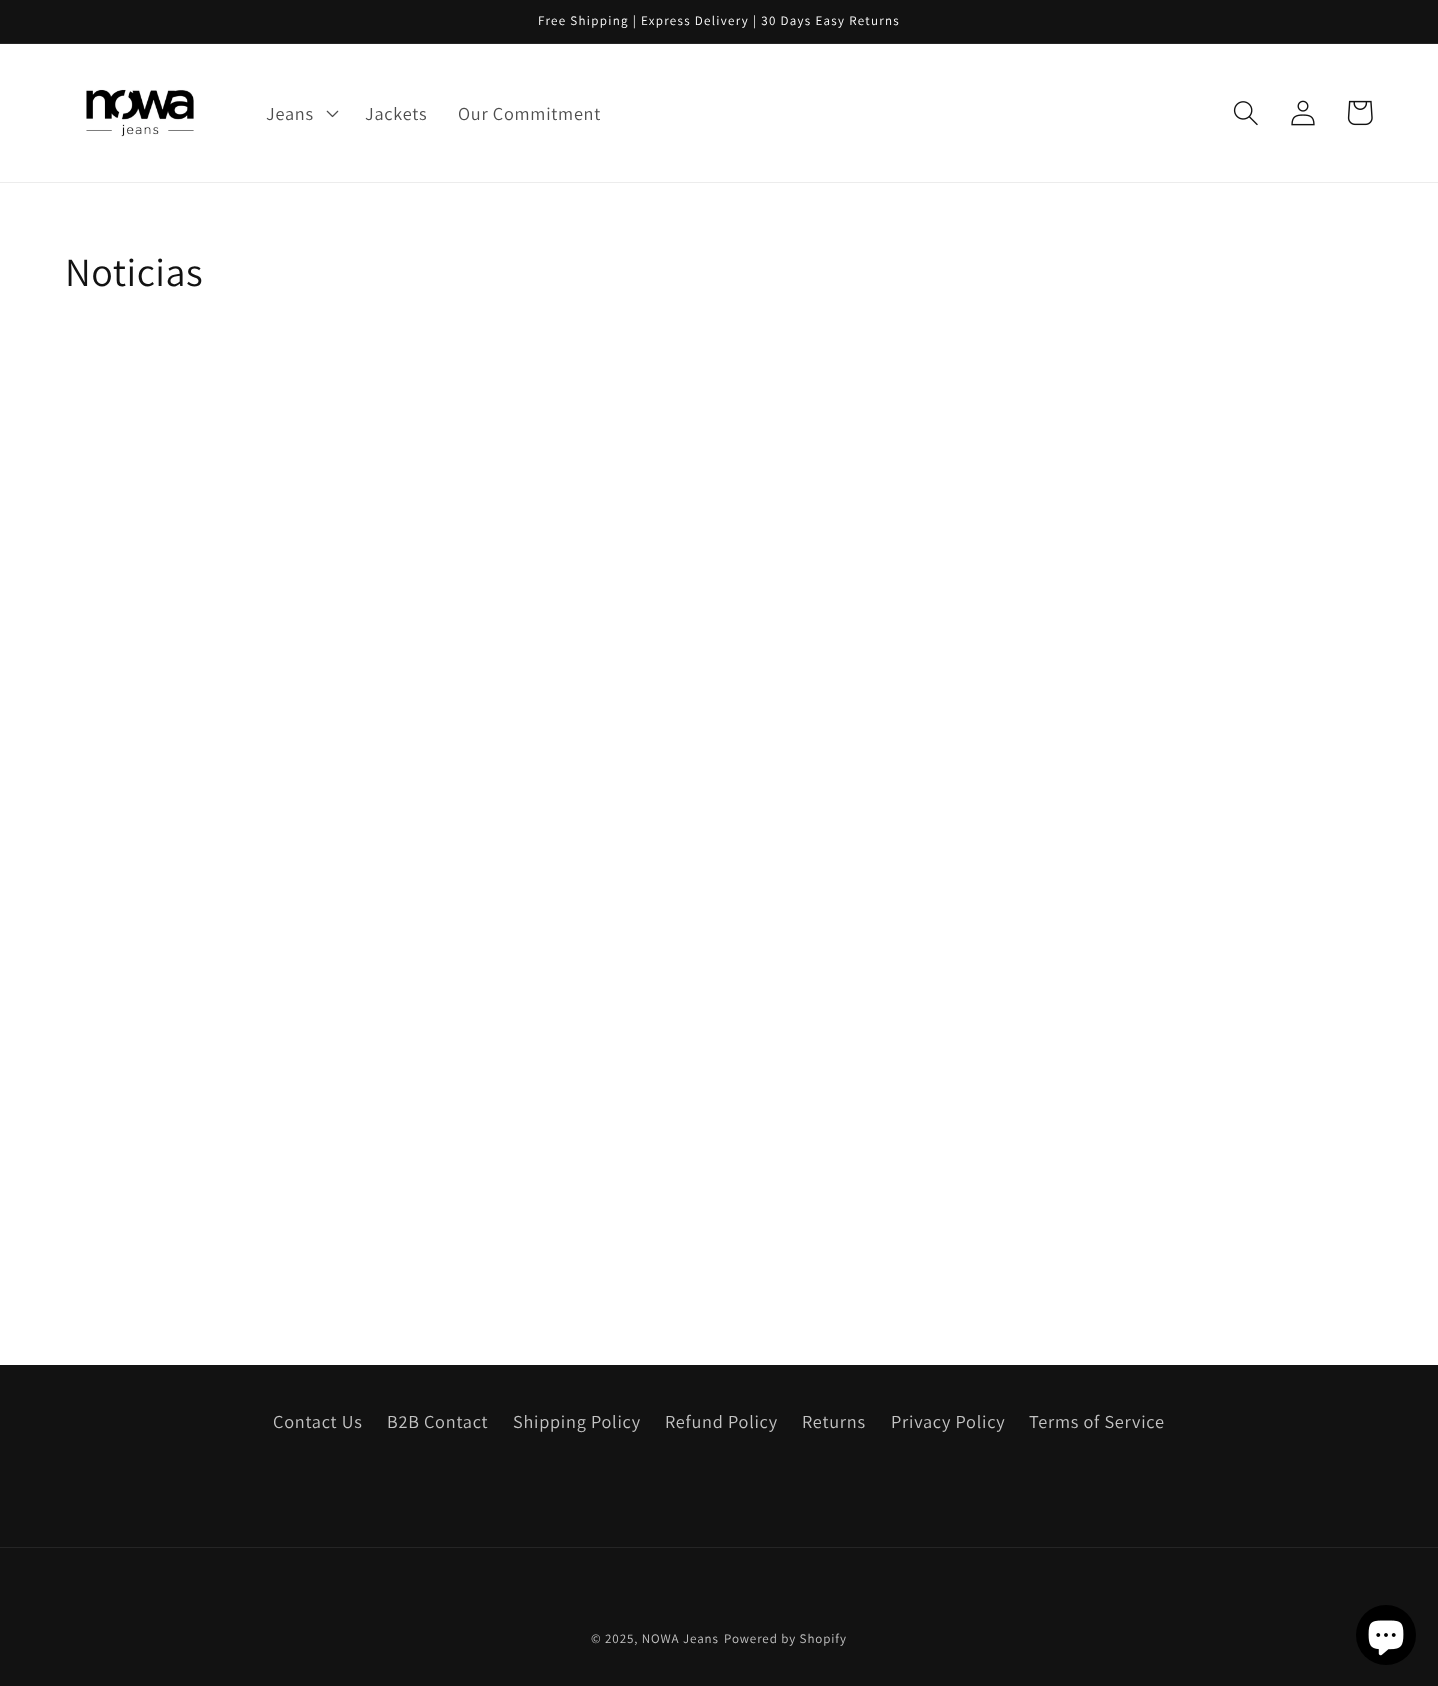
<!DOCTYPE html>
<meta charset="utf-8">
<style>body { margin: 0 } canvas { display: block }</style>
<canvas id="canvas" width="1438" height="1686"></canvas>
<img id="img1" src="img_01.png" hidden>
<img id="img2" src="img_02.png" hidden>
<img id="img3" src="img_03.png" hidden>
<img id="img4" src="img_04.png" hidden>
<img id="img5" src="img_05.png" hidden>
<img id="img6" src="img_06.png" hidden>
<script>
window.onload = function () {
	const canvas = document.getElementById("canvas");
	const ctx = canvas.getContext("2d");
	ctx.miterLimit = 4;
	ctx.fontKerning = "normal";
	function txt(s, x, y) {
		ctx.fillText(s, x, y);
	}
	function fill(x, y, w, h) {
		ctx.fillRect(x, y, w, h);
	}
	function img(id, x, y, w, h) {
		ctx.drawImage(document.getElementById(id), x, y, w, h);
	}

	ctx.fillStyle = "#FFFFFF";
	fill(0, 0, 1438, 1686);
	ctx.fillStyle = "#121212";
	fill(0, 0, 1438, 43);
	ctx.fillStyle = "#252525";
	fill(0, 43, 1438, 1);
	ctx.fillStyle = "#ECECEC";
	fill(0, 182, 1438, 1);
	img("img1", 86, 89, 108, 48);
	img("img2", 326, 110, 13, 8);
	img("img3", 1233, 101, 25, 25);
	img("img4", 1291, 100, 24, 26);
	img("img5", 1347, 100, 26, 26);
	ctx.fillStyle = "#121212";
	fill(0, 1365, 1438, 321);
	ctx.fillStyle = "#252525";
	fill(0, 1547, 1438, 1);
	ctx.fillStyle = "#000000";
	ctx.beginPath();
	ctx.arc(1386, 1635, 30, 0, Math.PI * 2);
	ctx.fill();
	img("img6", 1368, 1620, 36, 36);
	ctx.letterSpacing = "1.3px";
	ctx.font = "13px Assistant";
	ctx.fillStyle = "#FFFFFF";
	txt("Free Shipping | Express Delivery | 30 Days Easy Returns", 538, 25);
	ctx.letterSpacing = "0.75px";
	ctx.font = "18.25px Assistant";
	ctx.fillStyle = "#4D4D4D";
	txt("Jeans", 266, 120);
	txt("Jackets", 365, 120);
	txt("Our Commitment", 458, 120);
	ctx.letterSpacing = "0.5px";
	ctx.font = "40px Assistant";
	ctx.fillStyle = "#121212";
	txt("Noticias", 65, 286);
	ctx.letterSpacing = "0.75px";
	ctx.font = "18.25px Assistant";
	ctx.fillStyle = "#C4C4C4";
	txt("Contact Us", 273, 1428);
	txt("B2B Contact", 387, 1428);
	txt("Shipping Policy", 513, 1428);
	txt("Refund Policy", 665, 1428);
	txt("Returns", 802, 1428);
	txt("Privacy Policy", 891, 1428);
	txt("Terms of Service", 1029, 1428);
	ctx.letterSpacing = "0.9px";
	ctx.font = "13px Assistant";
	txt("© 2025, NOWA Jeans", 591, 1643);
	txt("Powered by Shopify", 724, 1643);
};
</script>
